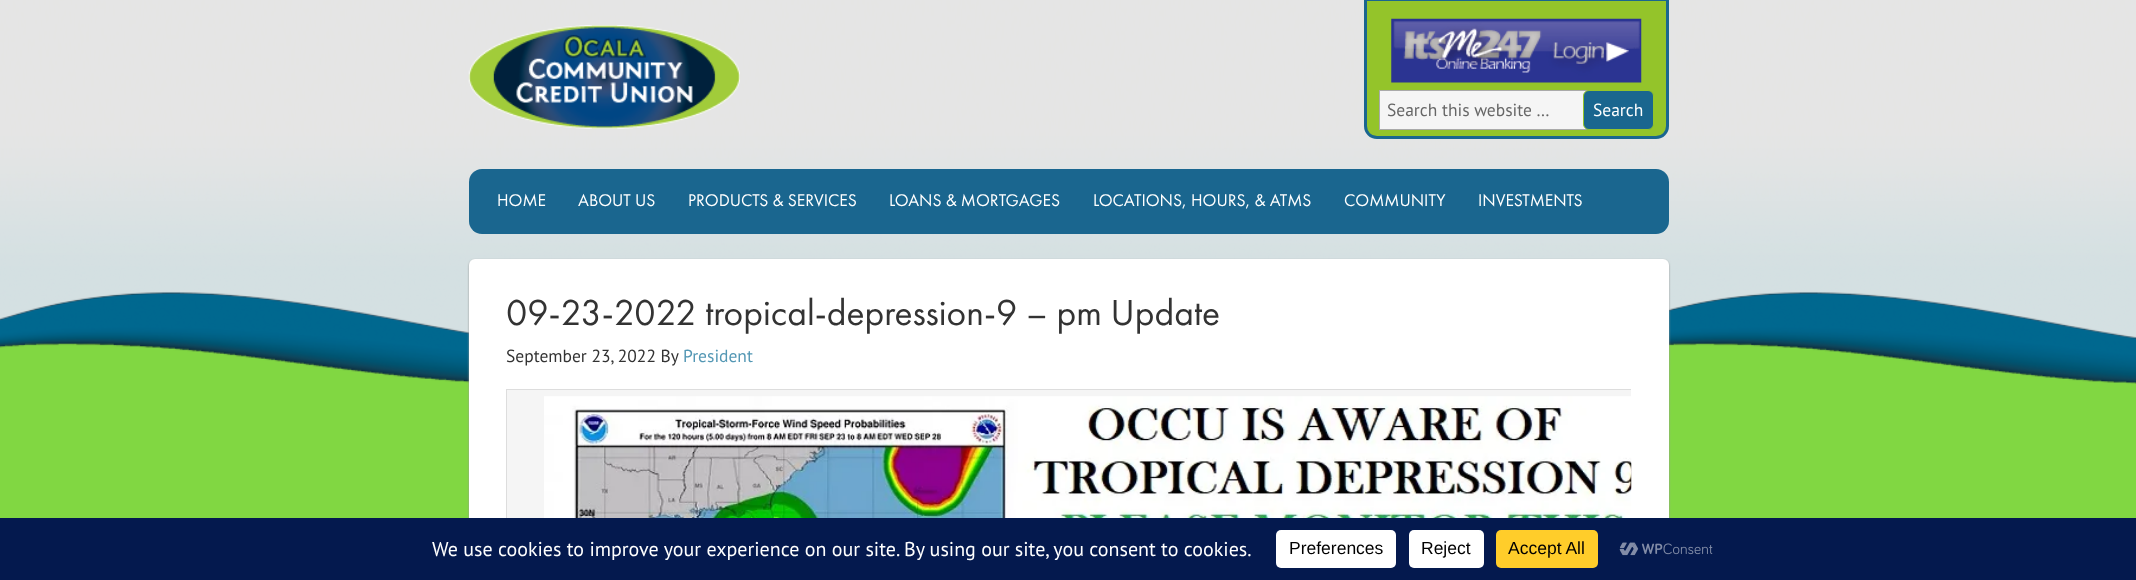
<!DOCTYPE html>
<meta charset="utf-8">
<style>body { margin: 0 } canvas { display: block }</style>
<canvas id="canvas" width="2136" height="580"></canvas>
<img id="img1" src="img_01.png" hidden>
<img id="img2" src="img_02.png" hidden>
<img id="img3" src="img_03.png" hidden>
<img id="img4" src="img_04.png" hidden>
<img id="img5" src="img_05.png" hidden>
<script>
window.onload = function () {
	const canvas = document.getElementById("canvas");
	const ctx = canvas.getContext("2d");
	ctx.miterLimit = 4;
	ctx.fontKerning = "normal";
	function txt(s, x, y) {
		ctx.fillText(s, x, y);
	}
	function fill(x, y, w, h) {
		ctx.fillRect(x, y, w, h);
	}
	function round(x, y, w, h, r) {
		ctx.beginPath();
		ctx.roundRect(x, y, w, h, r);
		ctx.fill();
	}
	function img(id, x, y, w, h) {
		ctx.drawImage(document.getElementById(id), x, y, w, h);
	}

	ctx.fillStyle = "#81D742";
	fill(0, 0, 2136, 580);
	img("img1", 0, 0, 2136, 384);
	img("img2", 468, 25, 272, 104);
	ctx.fillStyle = "#94C42A";
	ctx.beginPath();
	ctx.moveTo(1365.5, -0.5);
	ctx.lineTo(1667.5, -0.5);
	ctx.lineTo(1667.5, 126);
	ctx.bezierCurveTo(1667.5, 132.5, 1662.5, 137.5, 1656, 137.5);
	ctx.lineTo(1377, 137.5);
	ctx.bezierCurveTo(1370.5, 137.5, 1365.5, 132.5, 1365.5, 126);
	ctx.closePath();
	ctx.fill();
	ctx.strokeStyle = "#1A668F";
	ctx.lineWidth = 3;
	ctx.stroke();
	img("img3", 1391, 18, 251, 65);
	ctx.fillStyle = "#F5F5F5";
	fill(1380, 91, 206, 38);
	ctx.strokeStyle = "#AAAAAA";
	ctx.lineWidth = 1;
	ctx.strokeRect(1379.5, 90.5, 211, 39);
	ctx.fillStyle = "#1A668F";
	ctx.beginPath();
	ctx.roundRect(1583.5, 90.5, 70, 39, 5.5);
	ctx.fill();
	ctx.strokeStyle = "#94C42A";
	ctx.stroke();
	round(469, 169, 1200, 65, 13);
	ctx.fillStyle = "#999999";
	ctx.filter = "blur(1px)";
	ctx.beginPath();
	ctx.roundRect(469, 260, 1200, 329, 6);
	ctx.fill();
	ctx.filter = "none";
	ctx.fillStyle = "#FFFFFF";
	round(469, 259, 1200, 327, 6);
	ctx.fillStyle = "#F5F5F5";
	fill(507, 390, 1124, 128);
	ctx.save();
	ctx.beginPath();
	ctx.rect(506, 389, 1125, 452);
	ctx.clip();
	ctx.fillStyle = "#DDDDDD";
	ctx.beginPath();
	ctx.moveTo(506, 389);
	ctx.lineTo(506, 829);
	ctx.lineTo(1669, 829);
	ctx.lineTo(1669, 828);
	ctx.lineTo(507, 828);
	ctx.lineTo(507, 390);
	ctx.lineTo(1669, 390);
	ctx.lineTo(1669, 389);
	ctx.closePath();
	ctx.fill();
	ctx.restore();
	img("img4", 544, 396, 1088, 122);
	ctx.fillStyle = "#04194E";
	fill(0, 518, 2136, 62);
	ctx.fillStyle = "#FFFFFF";
	round(1276, 530, 120, 38, 5);
	round(1409, 530, 75, 38, 5);
	ctx.fillStyle = "#FFCD2A";
	round(1496, 530, 102, 38, 5);
	img("img5", 1619, 542, 94, 14);
	ctx.font = "17.5px PT Sans";
	ctx.fillStyle = "#666666";
	txt("Search this website …", 1387, 116);
	ctx.fillStyle = "#FFFFFF";
	txt("Search", 1593, 116);
	ctx.font = "17.5px Futura PT";
	txt("HOME", 497, 206);
	txt("ABOUT US", 578, 206);
	txt("PRODUCTS & SERVICES", 688, 206);
	txt("LOANS & MORTGAGES", 889, 206);
	txt("LOCATIONS, HOURS, & ATMS", 1093, 206);
	txt("COMMUNITY", 1344, 206);
	txt("INVESTMENTS", 1478, 206);
	ctx.font = "37.5px Futura PT";
	ctx.fillStyle = "#333333";
	txt("09-23-2022 tropical-depression-9 – pm Update", 506, 325);
	ctx.font = "17.5px PT Sans";
	txt("September 23, 2022 By", 506, 362);
	ctx.fillStyle = "#5397B4";
	txt("President", 683, 362);
	ctx.font = "20px PT Sans";
	ctx.fillStyle = "#FFFFFF";
	txt("We use cookies to improve your experience on our site. By using our site, you consent to cookies.", 432, 556);
	ctx.font = "17.5px Liberation Sans";
	ctx.fillStyle = "#000000";
	txt("Preferences", 1289, 554);
	txt("Reject", 1421, 554);
	txt("Accept All", 1508, 554);
};
</script>
